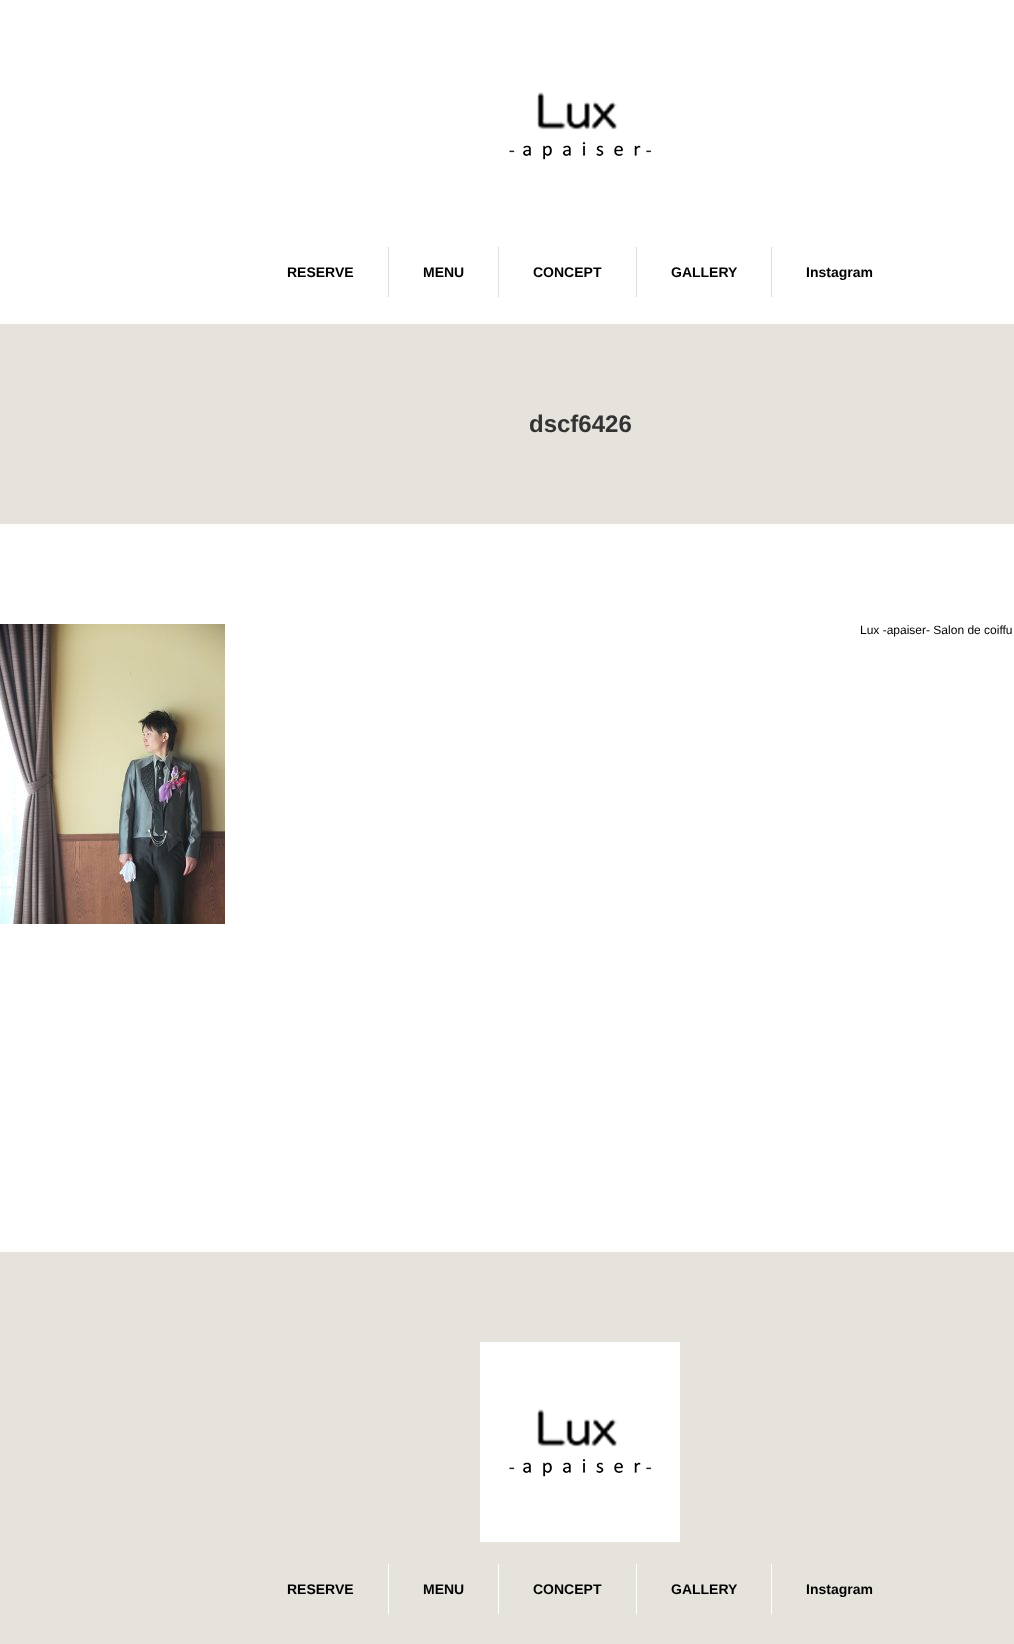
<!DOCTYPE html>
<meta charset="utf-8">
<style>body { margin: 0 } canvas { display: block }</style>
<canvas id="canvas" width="1014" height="1644"></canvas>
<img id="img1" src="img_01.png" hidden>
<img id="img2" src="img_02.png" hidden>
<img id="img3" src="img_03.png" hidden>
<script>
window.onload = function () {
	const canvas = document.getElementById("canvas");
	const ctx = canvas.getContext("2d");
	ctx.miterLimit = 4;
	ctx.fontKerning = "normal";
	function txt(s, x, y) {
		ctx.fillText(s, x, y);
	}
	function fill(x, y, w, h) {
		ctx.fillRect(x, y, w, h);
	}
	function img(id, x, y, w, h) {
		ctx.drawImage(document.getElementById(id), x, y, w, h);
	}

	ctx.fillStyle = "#FFFFFF";
	fill(0, 0, 1014, 1644);
	img("img1", 509, 92, 143, 68);
	ctx.fillStyle = "#DDDDDD";
	fill(388, 247, 1, 50);
	fill(498, 247, 1, 50);
	fill(636, 247, 1, 50);
	fill(771, 247, 1, 50);
	ctx.fillStyle = "#E6E3DC";
	fill(0, 324, 1014, 200);
	img("img2", 0, 624, 225, 300);
	fill(0, 1252, 1014, 392);
	img("img3", 480, 1342, 200, 200);
	ctx.fillStyle = "#FFFFFF";
	fill(388, 1564, 1, 50);
	fill(498, 1564, 1, 50);
	fill(636, 1564, 1, 50);
	fill(771, 1564, 1, 50);
	ctx.font = "bold 14px Liberation Sans";
	ctx.fillStyle = "#000000";
	txt("RESERVE", 287, 277);
	txt("MENU", 423, 277);
	txt("CONCEPT", 533, 277);
	txt("GALLERY", 671, 277);
	txt("Instagram", 806, 277);
	ctx.font = "bold 24px Liberation Sans";
	ctx.fillStyle = "#333333";
	txt("dscf6426", 529, 432);
	ctx.font = "12px Liberation Sans";
	ctx.fillStyle = "#000000";
	txt("Lux -apaiser- Salon de coiffu", 860, 634);
	ctx.font = "bold 14px Liberation Sans";
	txt("RESERVE", 287, 1594);
	txt("MENU", 423, 1594);
	txt("CONCEPT", 533, 1594);
	txt("GALLERY", 671, 1594);
	txt("Instagram", 806, 1594);
};
</script>
